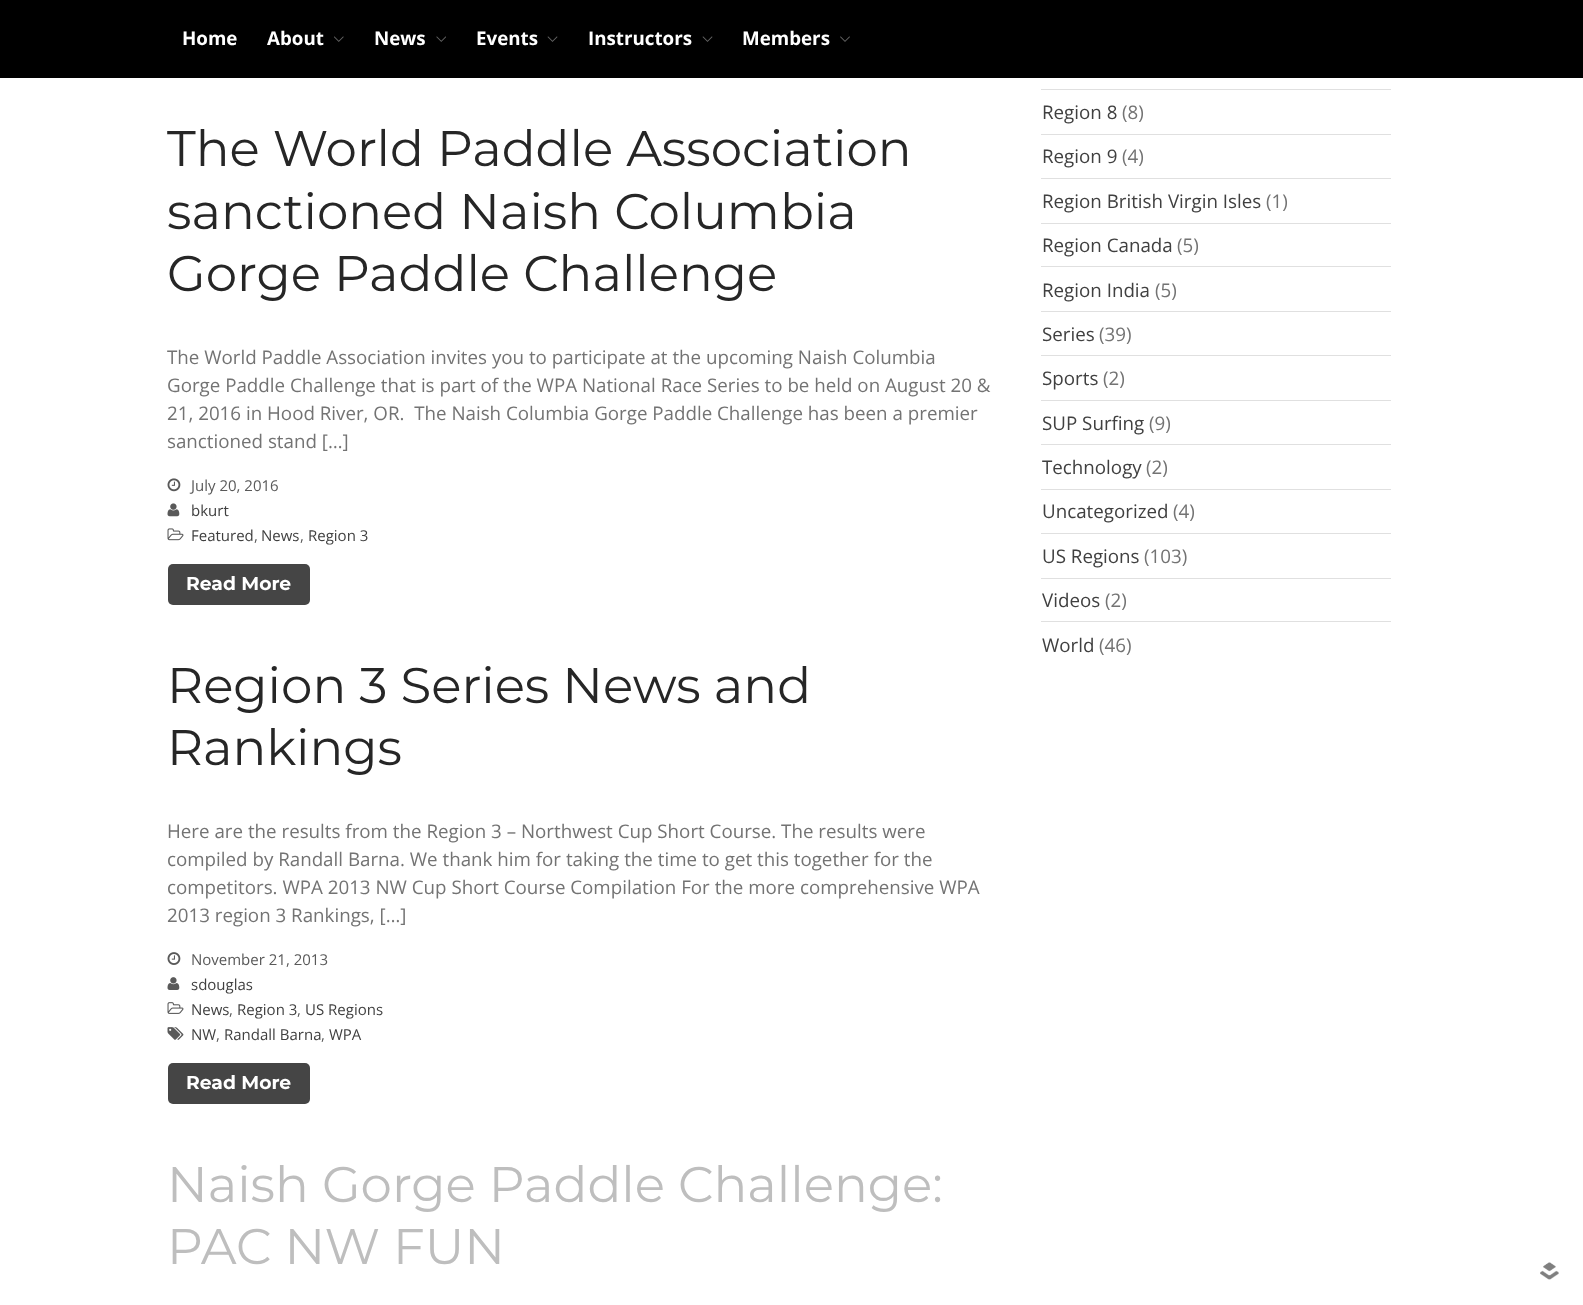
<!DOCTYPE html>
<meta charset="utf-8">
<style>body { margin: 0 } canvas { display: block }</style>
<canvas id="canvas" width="1583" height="1305"></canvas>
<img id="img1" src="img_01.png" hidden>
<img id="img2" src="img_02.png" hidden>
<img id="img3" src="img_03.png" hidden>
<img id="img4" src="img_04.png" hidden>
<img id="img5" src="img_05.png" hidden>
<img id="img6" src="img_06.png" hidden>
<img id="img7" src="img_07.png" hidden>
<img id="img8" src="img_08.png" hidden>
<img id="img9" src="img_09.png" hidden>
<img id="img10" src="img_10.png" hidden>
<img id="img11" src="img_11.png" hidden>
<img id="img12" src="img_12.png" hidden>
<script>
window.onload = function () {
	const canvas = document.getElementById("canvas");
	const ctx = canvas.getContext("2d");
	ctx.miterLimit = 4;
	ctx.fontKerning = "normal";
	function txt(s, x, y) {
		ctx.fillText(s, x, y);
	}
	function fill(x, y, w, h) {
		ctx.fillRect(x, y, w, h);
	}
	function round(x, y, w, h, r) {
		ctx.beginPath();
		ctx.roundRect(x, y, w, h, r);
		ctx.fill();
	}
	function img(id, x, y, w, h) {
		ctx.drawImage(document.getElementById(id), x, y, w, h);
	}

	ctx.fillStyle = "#FFFFFF";
	fill(0, 0, 1583, 1305);
	ctx.fillStyle = "#000000";
	fill(0, 0, 1583, 78);
	img("img1", 334, 36, 10, 6);
	img("img2", 436, 36, 10, 6);
	img("img3", 547, 36, 11, 6);
	img("img3", 702, 36, 11, 6);
	img("img4", 840, 36, 10, 6);
	img("img5", 167, 478, 14, 14);
	img("img6", 167, 503, 13, 14);
	img("img7", 167, 528, 17, 13);
	ctx.fillStyle = "#454545";
	round(168, 564, 142, 41, 5);
	img("img8", 167, 952, 14, 13);
	img("img9", 167, 977, 13, 13);
	img("img10", 167, 1002, 17, 12);
	img("img11", 167, 1027, 17, 13);
	round(168, 1063, 142, 41, 5);
	ctx.fillStyle = "#E0E0E0";
	fill(1041, 89, 350, 1);
	fill(1041, 134, 350, 1);
	fill(1041, 178, 350, 1);
	fill(1041, 223, 350, 1);
	fill(1041, 266, 350, 1);
	fill(1041, 311, 350, 1);
	fill(1041, 355, 350, 1);
	fill(1041, 400, 350, 1);
	fill(1041, 444, 350, 1);
	fill(1041, 489, 350, 1);
	fill(1041, 533, 350, 1);
	fill(1041, 578, 350, 1);
	fill(1041, 621, 350, 1);
	img("img12", 1540, 1262, 19, 18);
	ctx.font = "bold 18.75px Open Sans";
	ctx.fillStyle = "#FFFFFF";
	txt("Home", 182, 45);
	txt("About", 267, 45);
	txt("News", 374, 45);
	txt("Events", 476, 45);
	txt("Instructors", 588, 45);
	txt("Members", 742, 45);
	ctx.font = "50px Montserrat";
	ctx.fillStyle = "#262626";
	txt("The World Paddle Association", 167, 166);
	txt("sanctioned Naish Columbia", 167, 229);
	txt("Gorge Paddle Challenge", 167, 291);
	ctx.font = "18.75px Open Sans";
	ctx.fillStyle = "#737373";
	txt("The World Paddle Association invites you to participate at the upcoming Naish Columbia", 167, 364);
	txt("Gorge Paddle Challenge that is part of the WPA National Race Series to be held on August 20 &", 167, 392);
	txt("21, 2016 in Hood River, OR.  The Naish Columbia Gorge Paddle Challenge has been a premier", 167, 420);
	txt("sanctioned stand […]", 167, 448);
	ctx.font = "15px Open Sans";
	ctx.fillStyle = "#595959";
	txt("July 20, 2016", 191, 491);
	ctx.fillStyle = "#404040";
	txt("bkurt", 191, 516);
	txt("Featured", 191, 541);
	ctx.fillStyle = "#595959";
	txt(",", 254, 541);
	ctx.fillStyle = "#404040";
	txt("News", 261, 541);
	ctx.fillStyle = "#595959";
	txt(",", 300, 541);
	ctx.fillStyle = "#404040";
	txt("Region 3", 308, 541);
	ctx.font = "bold 18.75px Montserrat";
	ctx.fillStyle = "#FFFFFF";
	txt("Read More", 186, 590);
	ctx.font = "50px Montserrat";
	ctx.fillStyle = "#262626";
	txt("Region 3 Series News and", 167, 703);
	txt("Rankings", 167, 765);
	ctx.font = "18.75px Open Sans";
	ctx.fillStyle = "#737373";
	txt("Here are the results from the Region 3 – Northwest Cup Short Course. The results were", 167, 838);
	txt("compiled by Randall Barna. We thank him for taking the time to get this together for the", 167, 866);
	txt("competitors. WPA 2013 NW Cup Short Course Compilation For the more comprehensive WPA", 167, 894);
	txt("2013 region 3 Rankings, […]", 167, 922);
	ctx.font = "15px Open Sans";
	ctx.fillStyle = "#595959";
	txt("November 21, 2013", 191, 965);
	ctx.fillStyle = "#404040";
	txt("sdouglas", 191, 990);
	txt("News", 191, 1015);
	ctx.fillStyle = "#595959";
	txt(",", 229, 1015);
	ctx.fillStyle = "#404040";
	txt("Region 3", 237, 1015);
	ctx.fillStyle = "#595959";
	txt(",", 297, 1015);
	ctx.fillStyle = "#404040";
	txt("US Regions", 305, 1015);
	txt("NW", 191, 1040);
	ctx.fillStyle = "#595959";
	txt(",", 216, 1040);
	ctx.fillStyle = "#404040";
	txt("Randall Barna", 224, 1040);
	ctx.fillStyle = "#595959";
	txt(",", 321, 1040);
	ctx.fillStyle = "#404040";
	txt("WPA", 329, 1040);
	ctx.font = "bold 18.75px Montserrat";
	ctx.fillStyle = "#FFFFFF";
	txt("Read More", 186, 1089);
	ctx.font = "50px Montserrat";
	ctx.fillStyle = "#BEBEBE";
	txt("Naish Gorge Paddle Challenge:", 167, 1202);
	txt("PAC NW FUN", 167, 1264);
	ctx.font = "18.75px Open Sans";
	ctx.fillStyle = "#404040";
	txt("Region 8", 1042, 119);
	ctx.fillStyle = "#737373";
	txt("(8)", 1122, 119);
	ctx.fillStyle = "#404040";
	txt("Region 9", 1042, 163);
	ctx.fillStyle = "#737373";
	txt("(4)", 1122, 163);
	ctx.fillStyle = "#404040";
	txt("Region British Virgin Isles", 1042, 208);
	ctx.fillStyle = "#737373";
	txt("(1)", 1266, 208);
	ctx.fillStyle = "#404040";
	txt("Region Canada", 1042, 252);
	ctx.fillStyle = "#737373";
	txt("(5)", 1177, 252);
	ctx.fillStyle = "#404040";
	txt("Region India", 1042, 297);
	ctx.fillStyle = "#737373";
	txt("(5)", 1155, 297);
	ctx.fillStyle = "#404040";
	txt("Series", 1042, 341);
	ctx.fillStyle = "#737373";
	txt("(39)", 1099, 341);
	ctx.fillStyle = "#404040";
	txt("Sports", 1042, 385);
	ctx.fillStyle = "#737373";
	txt("(2)", 1103, 385);
	ctx.fillStyle = "#404040";
	txt("SUP Surfing", 1042, 430);
	ctx.fillStyle = "#737373";
	txt("(9)", 1149, 430);
	ctx.fillStyle = "#404040";
	txt("Technology", 1042, 474);
	ctx.fillStyle = "#737373";
	txt("(2)", 1146, 474);
	ctx.fillStyle = "#404040";
	txt("Uncategorized", 1042, 518);
	ctx.fillStyle = "#737373";
	txt("(4)", 1173, 518);
	ctx.fillStyle = "#404040";
	txt("US Regions", 1042, 563);
	ctx.fillStyle = "#737373";
	txt("(103)", 1144, 563);
	ctx.fillStyle = "#404040";
	txt("Videos", 1042, 607);
	ctx.fillStyle = "#737373";
	txt("(2)", 1105, 607);
	ctx.fillStyle = "#404040";
	txt("World", 1042, 652);
	ctx.fillStyle = "#737373";
	txt("(46)", 1099, 652);
};
</script>
